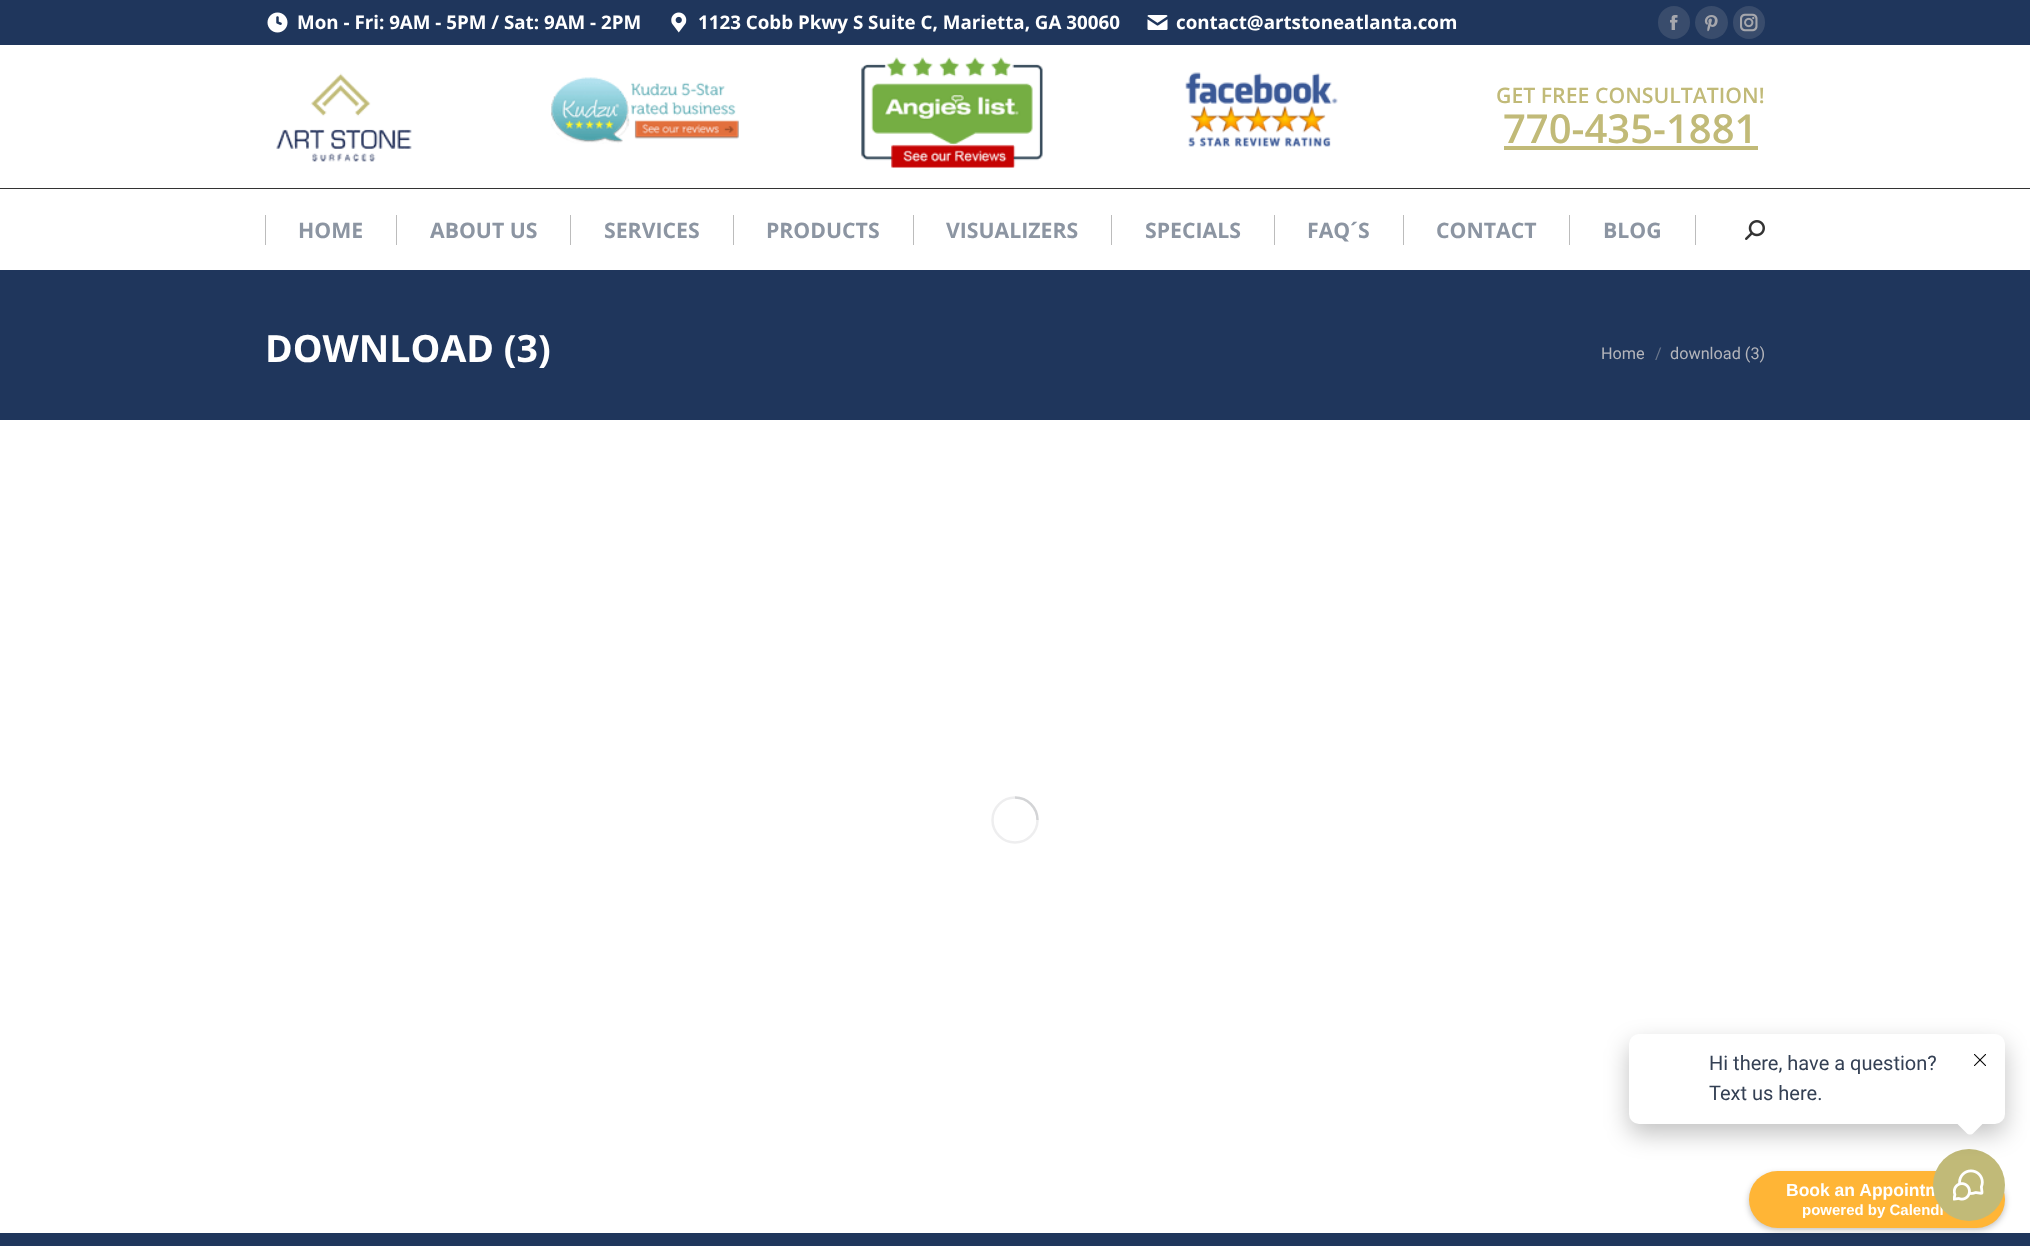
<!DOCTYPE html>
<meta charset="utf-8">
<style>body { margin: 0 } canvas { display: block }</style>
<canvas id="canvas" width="2030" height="1246"></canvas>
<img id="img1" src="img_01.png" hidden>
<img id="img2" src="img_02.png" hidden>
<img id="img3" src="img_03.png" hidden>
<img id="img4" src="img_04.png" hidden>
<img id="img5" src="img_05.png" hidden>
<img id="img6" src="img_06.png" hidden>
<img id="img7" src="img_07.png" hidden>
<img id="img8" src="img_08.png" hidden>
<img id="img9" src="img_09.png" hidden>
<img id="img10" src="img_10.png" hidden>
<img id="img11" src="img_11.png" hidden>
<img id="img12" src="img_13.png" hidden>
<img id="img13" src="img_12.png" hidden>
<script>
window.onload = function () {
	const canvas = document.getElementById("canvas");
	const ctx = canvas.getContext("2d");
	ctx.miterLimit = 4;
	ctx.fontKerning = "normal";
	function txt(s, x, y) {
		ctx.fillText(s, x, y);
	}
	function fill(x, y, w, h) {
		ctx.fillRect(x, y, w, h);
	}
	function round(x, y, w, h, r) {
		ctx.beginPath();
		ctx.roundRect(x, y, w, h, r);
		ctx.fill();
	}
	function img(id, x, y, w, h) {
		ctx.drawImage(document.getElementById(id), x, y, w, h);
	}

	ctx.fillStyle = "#FFFFFF";
	fill(0, 0, 2030, 1246);
	ctx.fillStyle = "#1F365C";
	fill(0, 0, 2030, 45);
	img("img1", 267, 12, 21, 21);
	img("img2", 671, 12, 16, 21);
	img("img3", 1147, 15, 21, 15);
	ctx.fillStyle = "#394C6C";
	round(1658, 6, 32, 33, 16);
	img("img4", 1670, 15, 8, 15);
	ctx.beginPath();
	ctx.arc(1711.5, 22.5, 16.5, 0, Math.PI * 2);
	ctx.fill();
	img("img5", 1704, 15, 14, 17);
	round(1733, 6, 32, 33, 16);
	img("img6", 1740, 13, 18, 19);
	img("img7", 276, 73, 136, 89);
	img("img8", 551, 77, 188, 67);
	img("img9", 861, 57, 182, 111);
	img("img10", 1185, 72, 153, 75);
	ctx.fillStyle = "#C1BA78";
	fill(1504, 146, 254, 4);
	ctx.fillStyle = "#333333";
	fill(0, 188, 2030, 1);
	ctx.fillStyle = "#BCBCBC";
	fill(265, 215, 1, 30);
	fill(396, 215, 1, 30);
	fill(570, 215, 1, 30);
	fill(733, 215, 1, 30);
	fill(913, 215, 1, 30);
	fill(1111, 215, 1, 30);
	fill(1274, 215, 1, 30);
	fill(1403, 215, 1, 30);
	fill(1569, 215, 1, 30);
	fill(1695, 215, 1, 30);
	img("img11", 1745, 220, 20, 20);
	ctx.fillStyle = "#1F365C";
	fill(0, 270, 2030, 150);
	ctx.beginPath();
	ctx.arc(1015, 820, 22.5, 0, Math.PI * 2);
	ctx.strokeStyle = "#EEEEEF";
	ctx.lineWidth = 2.5;
	ctx.stroke();
	ctx.beginPath();
	ctx.moveTo(1037.5, 820);
	ctx.bezierCurveTo(1037.5, 807.5, 1027.5, 797.5, 1015, 797.5);
	ctx.strokeStyle = "rgba(133, 134, 140, 0.25)";
	ctx.stroke();
	fill(0, 1233, 2030, 13);
	ctx.fillStyle = "rgba(0, 0, 0, 0.25)";
	ctx.filter = "blur(3px)";
	ctx.beginPath();
	ctx.roundRect(1749, 1174, 256, 56, 28);
	ctx.fill();
	ctx.filter = "none";
	ctx.fillStyle = "#FFB536";
	round(1749, 1171, 256, 57, 28.5);
	ctx.font = "bold 18.75px Open Sans";
	ctx.fillStyle = "#FFFFFF";
	txt("Mon - Fri: 9AM - 5PM / Sat: 9AM - 2PM", 297, 29);
	txt("1123 Cobb Pkwy S Suite C, Marietta, GA 30060", 698, 29);
	txt("contact@artstoneatlanta.com", 1176, 29);
	ctx.font = "600 21.25px Open Sans";
	ctx.fillStyle = "#C1BA78";
	txt("GET FREE CONSULTATION!", 1496, 103);
	ctx.font = "600 40px Open Sans";
	txt("770-435-1881", 1503, 143);
	ctx.font = "bold 21.25px Open Sans";
	ctx.fillStyle = "#8C95A2";
	txt("HOME", 298, 238);
	txt("ABOUT US", 430, 238);
	txt("SERVICES", 604, 238);
	txt("PRODUCTS", 766, 238);
	txt("VISUALIZERS", 946, 238);
	txt("SPECIALS", 1145, 238);
	txt("FAQ´S", 1307, 238);
	txt("CONTACT", 1436, 238);
	txt("BLOG", 1603, 238);
	ctx.font = "bold 37.5px Open Sans";
	ctx.fillStyle = "#FFFFFF";
	txt("DOWNLOAD (3)", 265, 362);
	ctx.font = "16.25px Roboto";
	ctx.fillStyle = "#B4B5BB";
	txt("Home", 1601, 359);
	ctx.fillStyle = "#6A768C";
	txt("/", 1655, 359);
	ctx.fillStyle = "#B4B5BB";
	txt("download (3)", 1670, 359);
	ctx.font = "bold 17.5px Liberation Sans";
	ctx.fillStyle = "#FFFFFF";
	txt("Book an Appointm", 1786, 1196);
	ctx.font = "bold 15px Liberation Sans";
	txt("powered by Calendl", 1802, 1215);
	ctx.fillStyle = "#C1BA78";
	ctx.beginPath();
	ctx.arc(1969, 1185, 36, 0, Math.PI * 2);
	ctx.fill();
	img("img12", 1953, 1169, 31, 32);
	ctx.fillStyle = "rgba(0, 0, 0, 0.24)";
	ctx.filter = "blur(12.5px)";
	ctx.beginPath();
	ctx.roundRect(1629, 1044, 376, 90, 10);
	ctx.fill();
	ctx.filter = "none";
	ctx.fillStyle = "#FFFFFF";
	round(1629, 1034, 376, 90, 10);
	img("img13", 1974, 1054, 12, 12);
	ctx.font = "20px Roboto";
	ctx.fillStyle = "#344054";
	txt("Text us here.", 1709, 1100);
	txt("Hi there, have a question?", 1709, 1070);
	ctx.fillStyle = "#FFFFFF";
	ctx.beginPath();
	ctx.moveTo(1973.5, 1104.5);
	ctx.lineTo(1984, 1115);
	ctx.bezierCurveTo(1986, 1117, 1986, 1120.5, 1984, 1122.5);
	ctx.lineTo(1973.5, 1133);
	ctx.bezierCurveTo(1971.5, 1135, 1968.5, 1135, 1966.5, 1133);
	ctx.lineTo(1956, 1122.5);
	ctx.bezierCurveTo(1954, 1120.5, 1954, 1117, 1956, 1115);
	ctx.lineTo(1966.5, 1104.5);
	ctx.bezierCurveTo(1968.5, 1102.5, 1971.5, 1102.5, 1973.5, 1104.5);
	ctx.closePath();
	ctx.fill();
};
</script>
